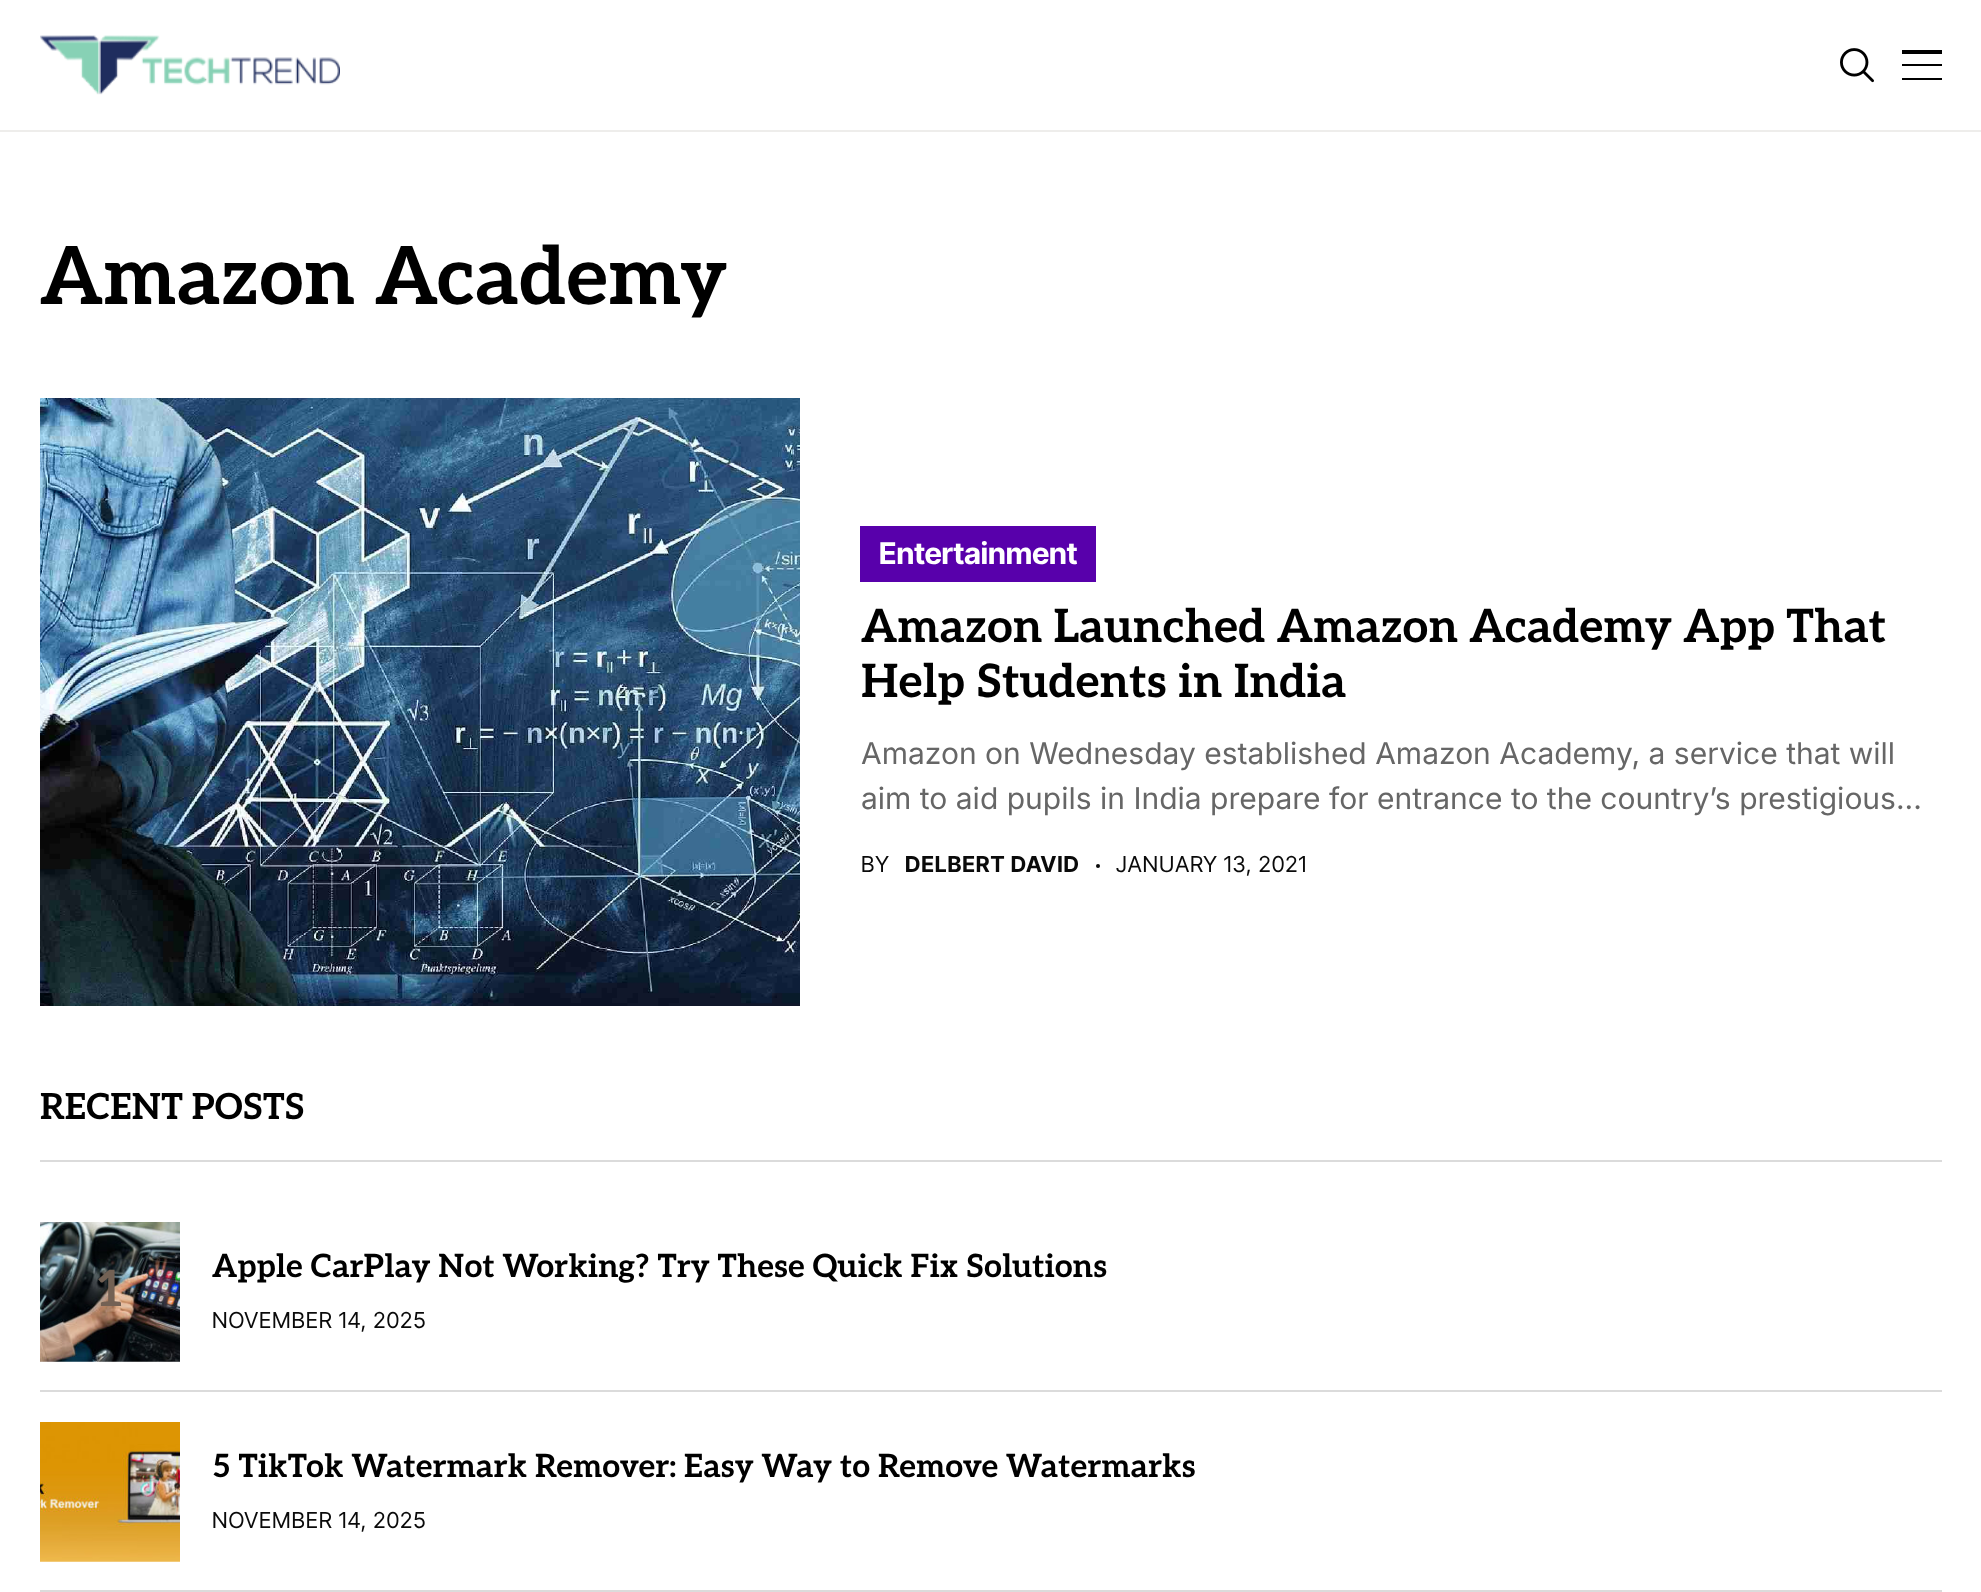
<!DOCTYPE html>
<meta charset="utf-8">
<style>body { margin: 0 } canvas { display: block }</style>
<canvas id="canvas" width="1981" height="1592"></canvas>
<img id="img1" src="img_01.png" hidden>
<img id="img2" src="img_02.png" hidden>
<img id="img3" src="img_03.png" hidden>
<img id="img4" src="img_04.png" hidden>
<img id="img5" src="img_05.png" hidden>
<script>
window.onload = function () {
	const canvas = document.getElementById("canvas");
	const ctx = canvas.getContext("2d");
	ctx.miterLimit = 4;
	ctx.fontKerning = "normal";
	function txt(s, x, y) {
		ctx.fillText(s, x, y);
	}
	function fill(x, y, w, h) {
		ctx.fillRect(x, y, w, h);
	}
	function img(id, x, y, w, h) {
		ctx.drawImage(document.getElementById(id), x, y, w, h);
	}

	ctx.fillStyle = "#FFFFFF";
	fill(0, 0, 1981, 1592);
	ctx.fillStyle = "#EEEDEB";
	fill(0, 130, 1981, 2);
	img("img1", 40, 35, 300, 60);
	img("img2", 1840, 48, 34, 35);
	ctx.fillStyle = "#000000";
	fill(1902, 50, 40, 4);
	fill(1902, 64, 40, 2);
	fill(1902, 78, 40, 2);
	img("img3", 40, 398, 760, 608);
	ctx.fillStyle = "#5800AB";
	fill(860, 526, 236, 56);
	ctx.fillStyle = "#0A0A0A";
	ctx.beginPath();
	ctx.arc(1098, 866, 2, 0, Math.PI * 2);
	ctx.fill();
	ctx.fillStyle = "#DBDBDB";
	fill(40, 1160, 1902, 2);
	img("img4", 40, 1222, 140, 140);
	fill(40, 1390, 1902, 2);
	img("img5", 40, 1422, 140, 140);
	fill(40, 1590, 1902, 2);
	ctx.font = "bold 80px Aleo";
	ctx.fillStyle = "#000000";
	txt("Amazon Academy", 40, 304);
	ctx.font = "bold 30px Inter Tight";
	ctx.fillStyle = "#FFFFFF";
	txt("Entertainment", 879, 564);
	ctx.font = "bold 46px Aleo";
	ctx.fillStyle = "#000000";
	txt("Amazon Launched Amazon Academy App That", 861, 642);
	txt("Help Students in India", 861, 697);
	ctx.font = "30px Inter";
	ctx.fillStyle = "#666666";
	txt("Amazon on Wednesday established Amazon Academy, a service that will", 861, 764);
	txt("aim to aid pupils in India prepare for entrance to the country’s prestigious...", 861, 809);
	ctx.letterSpacing = "0.9px";
	ctx.font = "22px Inter Tight";
	ctx.fillStyle = "#0A0A0A";
	txt("BY", 861, 872);
	ctx.font = "bold 22px Inter Tight";
	txt("DELBERT DAVID", 905, 872);
	ctx.font = "22px Inter Tight";
	txt("JANUARY 13, 2021", 1116, 872);
	ctx.letterSpacing = "0px";
	ctx.font = "bold 36px Aleo";
	ctx.fillStyle = "#000000";
	txt("RECENT POSTS", 40, 1119);
	ctx.font = "bold 50px Aleo";
	ctx.fillStyle = "#736154";
	txt("1", 95, 1306);
	ctx.font = "bold 32px Aleo";
	ctx.fillStyle = "#000000";
	txt("Apple CarPlay Not Working? Try These Quick Fix Solutions", 212, 1277);
	ctx.letterSpacing = "0.9px";
	ctx.font = "22px Inter Tight";
	ctx.fillStyle = "#0A0A0A";
	txt("NOVEMBER 14, 2025", 212, 1328);
	ctx.letterSpacing = "0px";
	ctx.font = "bold 32px Aleo";
	ctx.fillStyle = "#000000";
	txt("5 TikTok Watermark Remover: Easy Way to Remove Watermarks", 212, 1477);
	ctx.letterSpacing = "0.9px";
	ctx.font = "22px Inter Tight";
	ctx.fillStyle = "#0A0A0A";
	txt("NOVEMBER 14, 2025", 212, 1528);
};
</script>
